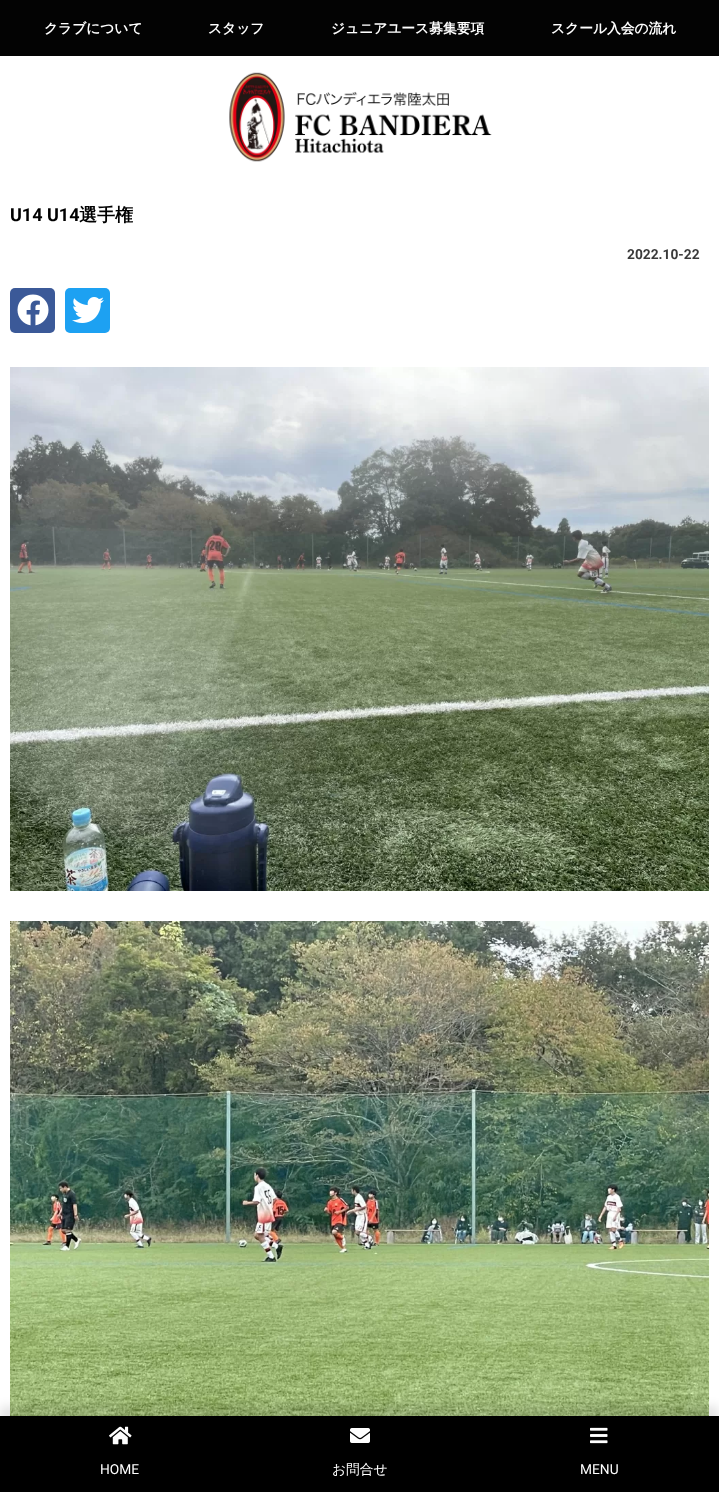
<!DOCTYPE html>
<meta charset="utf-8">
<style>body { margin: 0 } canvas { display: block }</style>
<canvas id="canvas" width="719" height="1492"></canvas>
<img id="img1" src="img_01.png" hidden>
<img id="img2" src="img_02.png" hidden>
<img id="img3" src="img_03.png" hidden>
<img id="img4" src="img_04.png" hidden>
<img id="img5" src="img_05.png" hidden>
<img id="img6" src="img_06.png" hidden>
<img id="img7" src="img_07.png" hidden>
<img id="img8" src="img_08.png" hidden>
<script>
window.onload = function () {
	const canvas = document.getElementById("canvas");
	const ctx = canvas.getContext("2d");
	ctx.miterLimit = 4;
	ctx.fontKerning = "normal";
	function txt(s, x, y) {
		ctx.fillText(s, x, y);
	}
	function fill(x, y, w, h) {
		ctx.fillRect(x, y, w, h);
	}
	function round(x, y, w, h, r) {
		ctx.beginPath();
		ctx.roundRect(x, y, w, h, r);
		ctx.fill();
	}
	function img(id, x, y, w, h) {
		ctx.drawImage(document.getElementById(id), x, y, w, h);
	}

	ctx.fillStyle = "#FFFFFF";
	fill(0, 0, 719, 1492);
	ctx.fillStyle = "#030303";
	fill(0, 0, 719, 56);
	img("img1", 229, 72, 263, 90);
	ctx.fillStyle = "#3B5998";
	round(10, 288, 45, 45, 5);
	img("img2", 17, 294, 32, 32);
	ctx.fillStyle = "#1DA1F2";
	round(65, 288, 45, 45, 5);
	img("img3", 72, 297, 32, 26);
	img("img4", 10, 367, 699, 524);
	img("img5", 10, 921, 699, 495);
	ctx.fillStyle = "rgba(0, 0, 0, 0.1)";
	ctx.filter = "blur(5px)";
	ctx.beginPath();
	ctx.rect(0, 1406, 719, 76);
	ctx.fill();
	ctx.filter = "none";
	ctx.fillStyle = "#000000";
	fill(0, 1416, 719, 76);
	img("img6", 109, 1426, 23, 19);
	img("img7", 350, 1428, 20, 15);
	img("img8", 590, 1427, 18, 17);
	ctx.font = "bold 13.75px WenQuanYi Zen Hei";
	ctx.fillStyle = "#FFFFFF";
	txt("クラブについて", 44, 33);
	txt("スタッフ", 208, 33);
	txt("ジュニアユース募集要項", 331, 33);
	txt("スクール入会の流れ", 551, 33);
	ctx.font = "bold 18px Roboto";
	ctx.fillStyle = "#000000";
	txt("U14 U14", 10, 221);
	ctx.font = "bold 18px WenQuanYi Zen Hei";
	txt("選手権", 79, 221);
	ctx.font = "bold 13.75px Roboto";
	ctx.fillStyle = "#3A3A3A";
	txt("2022.10-22", 627, 259);
	ctx.font = "13.75px Roboto";
	ctx.fillStyle = "#FFFFFF";
	txt("HOME", 100, 1474);
	ctx.font = "500 13.75px WenQuanYi Zen Hei";
	txt("お問合せ", 332, 1474);
	ctx.font = "13.75px Roboto";
	txt("MENU", 580, 1474);
};
</script>
